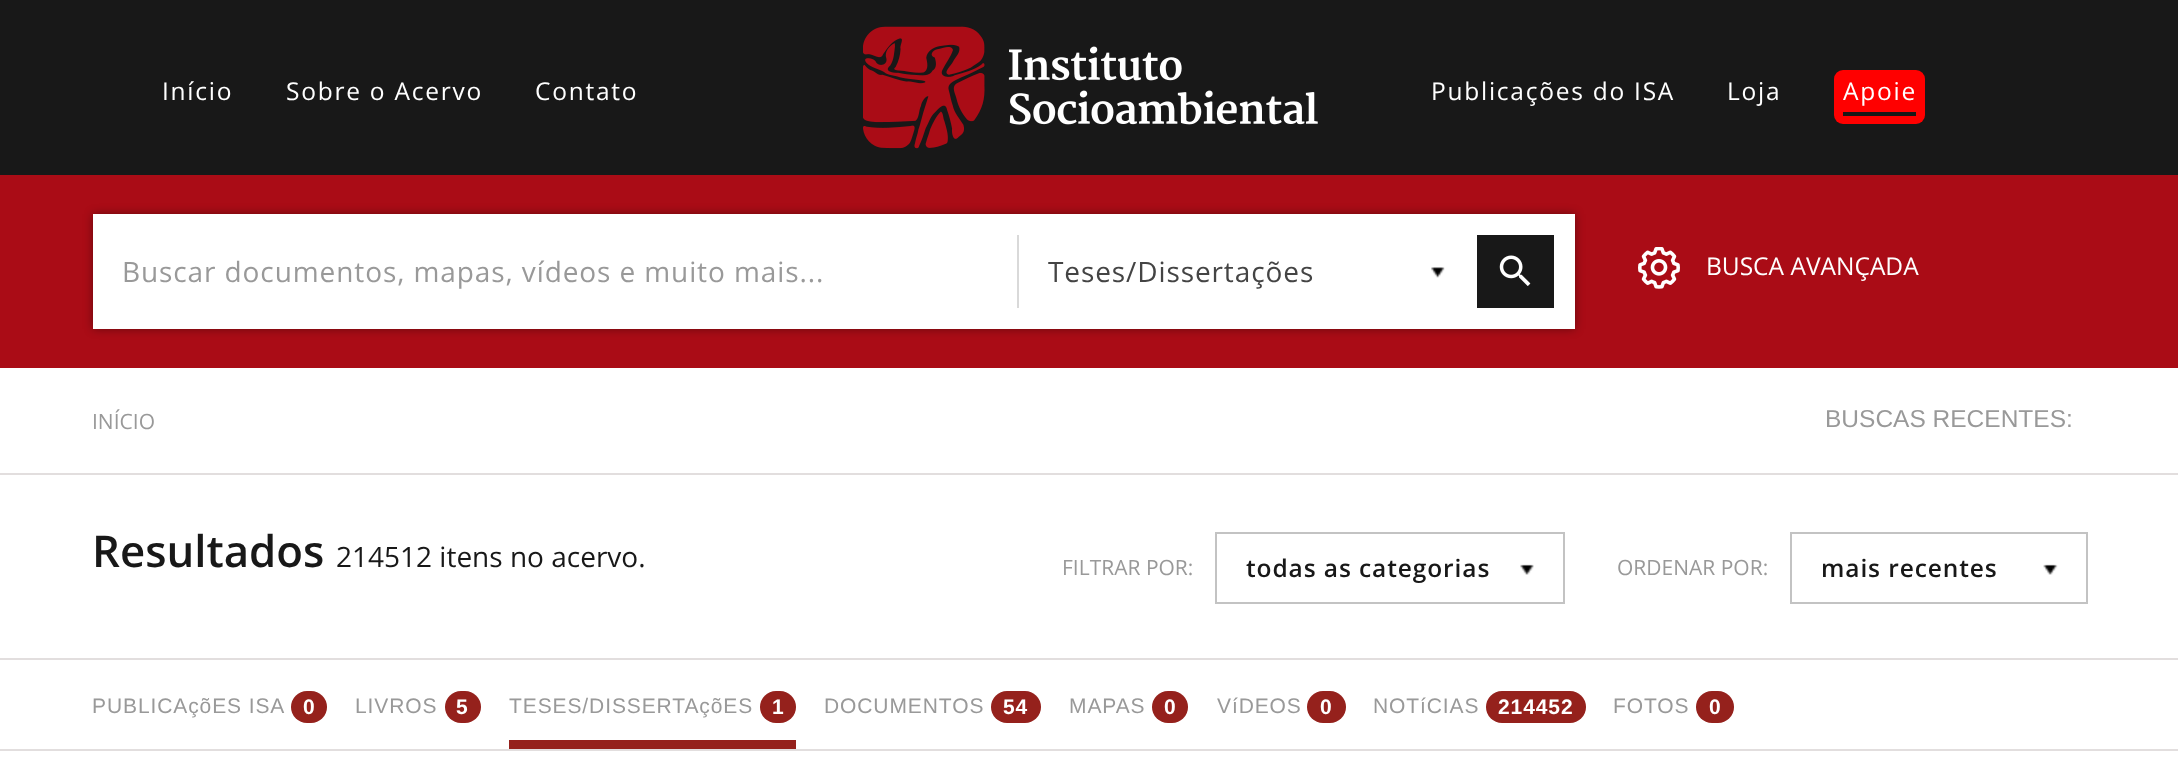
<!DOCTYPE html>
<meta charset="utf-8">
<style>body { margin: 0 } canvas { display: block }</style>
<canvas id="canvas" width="2178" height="781"></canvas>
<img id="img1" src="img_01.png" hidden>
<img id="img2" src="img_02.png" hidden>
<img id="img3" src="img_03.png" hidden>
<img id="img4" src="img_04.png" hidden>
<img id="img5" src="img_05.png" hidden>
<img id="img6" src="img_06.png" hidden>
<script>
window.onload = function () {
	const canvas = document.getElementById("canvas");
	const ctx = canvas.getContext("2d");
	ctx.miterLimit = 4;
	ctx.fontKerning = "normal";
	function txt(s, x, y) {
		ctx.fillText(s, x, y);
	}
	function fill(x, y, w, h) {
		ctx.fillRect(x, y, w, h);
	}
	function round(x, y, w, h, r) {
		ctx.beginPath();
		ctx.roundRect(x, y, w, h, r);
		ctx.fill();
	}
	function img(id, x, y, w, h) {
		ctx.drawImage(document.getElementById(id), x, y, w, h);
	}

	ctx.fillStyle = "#181818";
	fill(0, 0, 2178, 781);
	img("img1", 863, 26, 455, 123);
	ctx.fillStyle = "#FF0000";
	round(1834, 70, 91, 54, 9);
	ctx.fillStyle = "#181818";
	fill(1843, 112, 73, 4);
	ctx.fillStyle = "#AA0C16";
	fill(0, 175, 2178, 193);
	ctx.fillStyle = "rgba(0, 0, 0, 0.4)";
	ctx.filter = "blur(5px)";
	ctx.beginPath();
	ctx.rect(93, 214, 1482, 115);
	ctx.fill();
	ctx.filter = "none";
	ctx.fillStyle = "#FFFFFF";
	fill(93, 214, 1482, 115);
	ctx.fillStyle = "#D9D9D9";
	fill(1017, 235, 2, 73);
	img("img2", 1431, 267, 14, 11);
	ctx.fillStyle = "#181818";
	fill(1477, 235, 77, 73);
	img("img3", 1499, 255, 32, 31);
	img("img4", 1638, 247, 42, 42);
	ctx.fillStyle = "#FFFFFF";
	fill(0, 368, 2178, 413);
	ctx.fillStyle = "#E2DEDE";
	fill(0, 473, 2178, 2);
	ctx.strokeStyle = "#C3C3C3";
	ctx.lineWidth = 2;
	ctx.strokeRect(1216, 533, 348, 70);
	img("img5", 1520, 564, 14, 11);
	ctx.strokeRect(1791, 533, 296, 70);
	img("img6", 2043, 564, 15, 11);
	fill(0, 658, 2178, 2);
	ctx.fillStyle = "#95211C";
	round(291, 691, 36, 32, 16);
	round(445, 691, 36, 32, 16);
	fill(509, 740, 287, 9);
	round(760, 691, 36, 32, 16);
	round(991, 691, 50, 32, 16);
	round(1152, 691, 36, 32, 16);
	round(1307, 691, 39, 32, 16);
	round(1486, 691, 100, 32, 16);
	round(1696, 691, 38, 32, 16);
	ctx.fillStyle = "#E2DEDE";
	fill(0, 749, 2178, 2);
	ctx.letterSpacing = "1.75px";
	ctx.font = "24.5px Open Sans";
	ctx.fillStyle = "#FFFFFF";
	txt("Início", 162, 100);
	txt("Sobre o Acervo", 286, 100);
	txt("Contato", 535, 100);
	txt("Publicações do ISA", 1431, 100);
	txt("Loja", 1727, 100);
	txt("Apoie", 1843, 100);
	ctx.letterSpacing = "0.9px";
	ctx.font = "28px Open Sans";
	ctx.fillStyle = "#999999";
	txt("Buscar documentos, mapas, vídeos e muito mais...", 122, 282);
	ctx.fillStyle = "#444444";
	txt("Teses/Dissertações", 1048, 282);
	ctx.letterSpacing = "0px";
	ctx.font = "24.5px Open Sans";
	ctx.fillStyle = "#FFFFFF";
	txt("BUSCA AVANÇADA", 1706, 275);
	ctx.font = "21px Open Sans";
	ctx.fillStyle = "#999999";
	txt("INÍCIO", 92, 429);
	ctx.font = "24.5px Liberation Sans";
	txt("BUSCAS RECENTES:", 1825, 427);
	ctx.font = "600 43.75px Open Sans";
	ctx.fillStyle = "#181818";
	txt("Resultados", 92, 567);
	ctx.font = "28px Open Sans";
	txt("214512 itens no acervo.", 336, 567);
	ctx.font = "21px Open Sans";
	ctx.fillStyle = "#999999";
	txt("FILTRAR POR:", 1062, 575);
	ctx.letterSpacing = "0.9px";
	ctx.font = "600 24.5px Open Sans";
	ctx.fillStyle = "#181818";
	txt("todas as categorias", 1246, 577);
	ctx.letterSpacing = "0px";
	ctx.font = "21px Open Sans";
	ctx.fillStyle = "#999999";
	txt("ORDENAR POR:", 1617, 575);
	ctx.letterSpacing = "0.9px";
	ctx.font = "600 24.5px Open Sans";
	ctx.fillStyle = "#181818";
	txt("mais recentes", 1821, 577);
	ctx.font = "21px Liberation Sans";
	ctx.fillStyle = "#999999";
	txt("PUBLICAçõES ISA", 92, 713);
	ctx.font = "bold 21px Liberation Sans";
	ctx.fillStyle = "#FFFFFF";
	txt("0", 303, 714);
	ctx.font = "21px Liberation Sans";
	ctx.fillStyle = "#999999";
	txt("LIVROS", 355, 713);
	ctx.font = "bold 21px Liberation Sans";
	ctx.fillStyle = "#FFFFFF";
	txt("5", 456, 714);
	ctx.font = "21px Liberation Sans";
	ctx.fillStyle = "#999999";
	txt("TESES/DISSERTAçõES", 509, 713);
	ctx.font = "bold 21px Liberation Sans";
	ctx.fillStyle = "#FFFFFF";
	txt("1", 772, 714);
	ctx.font = "21px Liberation Sans";
	ctx.fillStyle = "#999999";
	txt("DOCUMENTOS", 824, 713);
	ctx.font = "bold 21px Liberation Sans";
	ctx.fillStyle = "#FFFFFF";
	txt("54", 1003, 714);
	ctx.font = "21px Liberation Sans";
	ctx.fillStyle = "#999999";
	txt("MAPAS", 1069, 713);
	ctx.font = "bold 21px Liberation Sans";
	ctx.fillStyle = "#FFFFFF";
	txt("0", 1164, 714);
	ctx.font = "21px Liberation Sans";
	ctx.fillStyle = "#999999";
	txt("VíDEOS", 1217, 713);
	ctx.font = "bold 21px Liberation Sans";
	ctx.fillStyle = "#FFFFFF";
	txt("0", 1320, 714);
	ctx.font = "21px Liberation Sans";
	ctx.fillStyle = "#999999";
	txt("NOTíCIAS", 1373, 713);
	ctx.font = "bold 21px Liberation Sans";
	ctx.fillStyle = "#FFFFFF";
	txt("214452", 1498, 714);
	ctx.font = "21px Liberation Sans";
	ctx.fillStyle = "#999999";
	txt("FOTOS", 1613, 713);
	ctx.font = "bold 21px Liberation Sans";
	ctx.fillStyle = "#FFFFFF";
	txt("0", 1709, 714);
};
</script>
